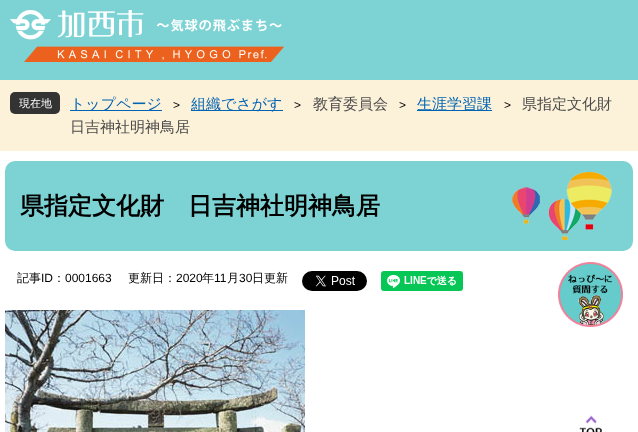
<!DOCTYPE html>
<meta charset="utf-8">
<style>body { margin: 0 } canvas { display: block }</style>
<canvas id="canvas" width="638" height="432"></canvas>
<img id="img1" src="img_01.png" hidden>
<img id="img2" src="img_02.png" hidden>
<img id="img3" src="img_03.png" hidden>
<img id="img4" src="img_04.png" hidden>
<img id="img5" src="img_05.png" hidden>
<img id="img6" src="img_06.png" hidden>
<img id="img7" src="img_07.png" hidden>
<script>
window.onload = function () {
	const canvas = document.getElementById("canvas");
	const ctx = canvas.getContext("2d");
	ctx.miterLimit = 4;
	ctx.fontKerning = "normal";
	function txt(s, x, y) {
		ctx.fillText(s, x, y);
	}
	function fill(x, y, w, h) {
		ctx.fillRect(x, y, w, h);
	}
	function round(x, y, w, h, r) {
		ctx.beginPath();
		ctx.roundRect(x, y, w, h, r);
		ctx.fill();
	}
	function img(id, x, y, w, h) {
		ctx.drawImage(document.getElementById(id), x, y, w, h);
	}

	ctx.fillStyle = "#FFFFFF";
	fill(0, 0, 638, 432);
	ctx.fillStyle = "#7DD3D4";
	fill(0, 0, 638, 80);
	img("img1", 10, 10, 274, 52);
	ctx.fillStyle = "#FCF1D9";
	fill(0, 80, 638, 71);
	ctx.fillStyle = "#333333";
	round(10, 92, 50, 22, 5);
	ctx.fillStyle = "#0063B3";
	fill(70, 110, 92, 1);
	fill(191, 110, 92, 1);
	fill(417, 110, 75, 1);
	ctx.fillStyle = "#7DD3D4";
	round(5, 161, 628, 90, 10);
	img("img2", 512, 172, 100, 68);
	img("img3", 302, 271, 65, 20);
	img("img4", 381, 271, 82, 20);
	img("img5", 5, 310, 300, 122);
	img("img6", 579, 415, 23, 17);
	img("img7", 558, 262, 65, 65);
	ctx.font = "500 11px WenQuanYi Zen Hei";
	ctx.fillStyle = "#FFFFFF";
	txt("現在地", 19, 107);
	ctx.font = "500 15px WenQuanYi Zen Hei";
	ctx.fillStyle = "#0063B3";
	txt("トップページ", 70, 109);
	ctx.font = "12px Liberation Sans";
	ctx.fillStyle = "#000000";
	txt(">", 173, 109);
	ctx.font = "500 15px WenQuanYi Zen Hei";
	ctx.fillStyle = "#0063B3";
	txt("組織でさがす", 191, 109);
	ctx.font = "12px Liberation Sans";
	ctx.fillStyle = "#000000";
	txt(">", 294, 109);
	ctx.font = "500 15px WenQuanYi Zen Hei";
	ctx.fillStyle = "#4B4B4B";
	txt("教育委員会", 313, 109);
	ctx.font = "12px Liberation Sans";
	ctx.fillStyle = "#000000";
	txt(">", 399, 109);
	ctx.font = "500 15px WenQuanYi Zen Hei";
	ctx.fillStyle = "#0063B3";
	txt("生涯学習課", 417, 109);
	ctx.font = "12px Liberation Sans";
	ctx.fillStyle = "#000000";
	txt(">", 504, 109);
	ctx.font = "500 15px WenQuanYi Zen Hei";
	ctx.fillStyle = "#4B4B4B";
	txt("県指定文化財", 522, 109);
	txt("日吉神社明神鳥居", 70, 132);
	ctx.font = "bold 24px WenQuanYi Zen Hei";
	ctx.fillStyle = "#000000";
	txt("県指定文化財　日吉神社明神鳥居", 20, 214);
	ctx.font = "500 12px WenQuanYi Zen Hei";
	txt("記事", 17, 282);
	ctx.font = "12px Liberation Sans";
	txt("ID", 41, 282);
	ctx.font = "500 12px WenQuanYi Zen Hei";
	txt("：", 53, 282);
	ctx.font = "12px Liberation Sans";
	txt("0001663", 65, 282);
	ctx.font = "500 12px WenQuanYi Zen Hei";
	txt("更新日：", 128, 282);
	ctx.font = "12px Liberation Sans";
	txt("2020", 176, 282);
	ctx.font = "500 12px WenQuanYi Zen Hei";
	txt("年", 202, 282);
	ctx.font = "12px Liberation Sans";
	txt("11", 214, 282);
	ctx.font = "500 12px WenQuanYi Zen Hei";
	txt("月", 227, 282);
	ctx.font = "12px Liberation Sans";
	txt("30", 239, 282);
	ctx.font = "500 12px WenQuanYi Zen Hei";
	txt("日更新", 252, 282);
};
</script>
